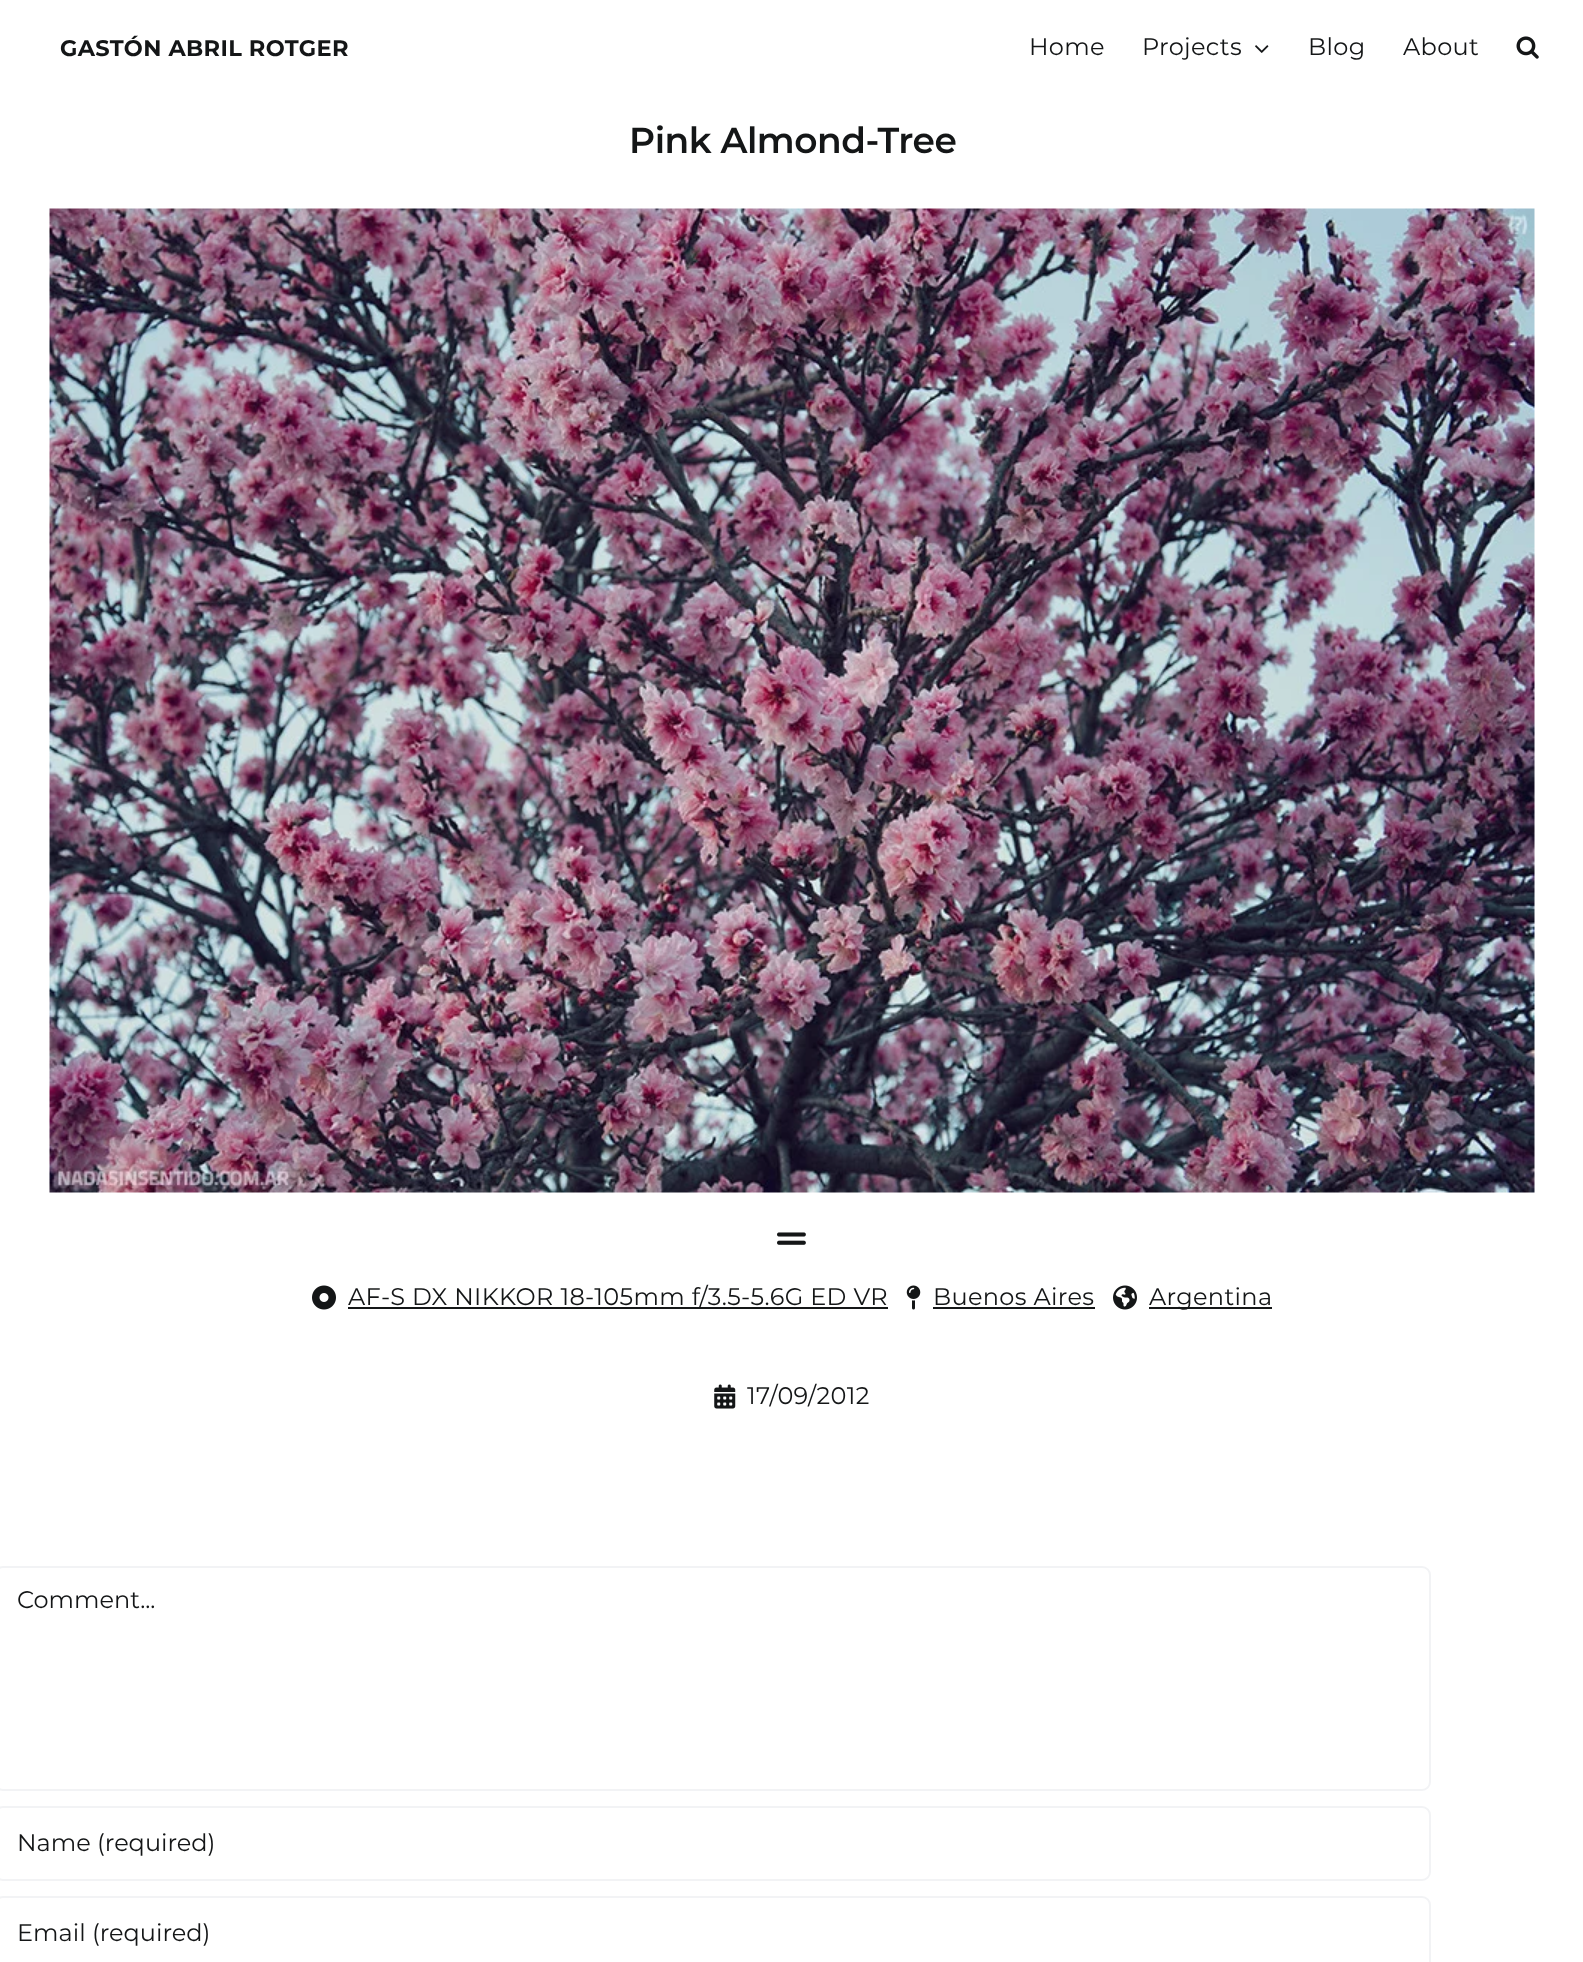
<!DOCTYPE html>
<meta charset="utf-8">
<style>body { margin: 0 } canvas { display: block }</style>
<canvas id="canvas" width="1583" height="1962"></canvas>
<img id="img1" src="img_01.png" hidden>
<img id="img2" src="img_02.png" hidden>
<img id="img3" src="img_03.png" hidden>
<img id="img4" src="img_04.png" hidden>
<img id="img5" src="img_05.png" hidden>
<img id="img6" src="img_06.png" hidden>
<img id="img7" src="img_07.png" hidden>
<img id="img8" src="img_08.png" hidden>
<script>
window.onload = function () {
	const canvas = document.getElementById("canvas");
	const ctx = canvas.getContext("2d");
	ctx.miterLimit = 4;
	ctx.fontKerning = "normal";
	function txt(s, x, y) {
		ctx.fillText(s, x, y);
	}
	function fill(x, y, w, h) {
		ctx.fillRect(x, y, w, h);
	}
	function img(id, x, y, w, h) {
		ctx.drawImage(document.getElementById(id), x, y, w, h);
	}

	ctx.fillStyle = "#FFFFFF";
	fill(0, 0, 1583, 1962);
	img("img1", 1255, 45, 14, 8);
	img("img2", 1516, 36, 23, 23);
	img("img3", 49, 208, 1486, 985);
	img("img4", 777, 1232, 29, 13);
	img("img5", 312, 1285, 24, 25);
	ctx.fillStyle = "#141617";
	fill(348, 1307, 540, 2);
	img("img6", 906, 1285, 15, 25);
	fill(933, 1307, 162, 2);
	img("img7", 1113, 1285, 24, 25);
	fill(1149, 1307, 123, 2);
	img("img8", 714, 1384, 22, 25);
	ctx.beginPath();
	ctx.roundRect(-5, 1567, 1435, 223, 8);
	ctx.strokeStyle = "#F2F3F5";
	ctx.lineWidth = 2;
	ctx.stroke();
	ctx.beginPath();
	ctx.roundRect(-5, 1807, 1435, 73, 8);
	ctx.stroke();
	ctx.beginPath();
	ctx.roundRect(-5, 1897, 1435, 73, 8);
	ctx.stroke();
	ctx.letterSpacing = "0.35px";
	ctx.font = "bold 22.5px Montserrat";
	txt("GASTÓN ABRIL ROTGER", 60, 56);
	ctx.font = "24px Montserrat";
	txt("Home", 1029, 55);
	txt("Projects", 1142, 55);
	txt("Blog", 1308, 55);
	txt("About", 1403, 55);
	ctx.letterSpacing = "-0.5px";
	ctx.font = "600 36px Montserrat";
	txt("Pink Almond-Tree", 629, 153);
	ctx.letterSpacing = "0.35px";
	ctx.font = "24px Montserrat";
	txt("AF-S DX NIKKOR 18-105mm f/3.5-5.6G ED VR", 348, 1305);
	txt("Buenos Aires", 933, 1305);
	txt("Argentina", 1149, 1305);
	txt("17/09/2012", 747, 1404);
	ctx.letterSpacing = "0px";
	txt("Comment...", 17, 1608);
	txt("Name (required)", 17, 1851);
	txt("Email (required)", 17, 1941);
};
</script>
